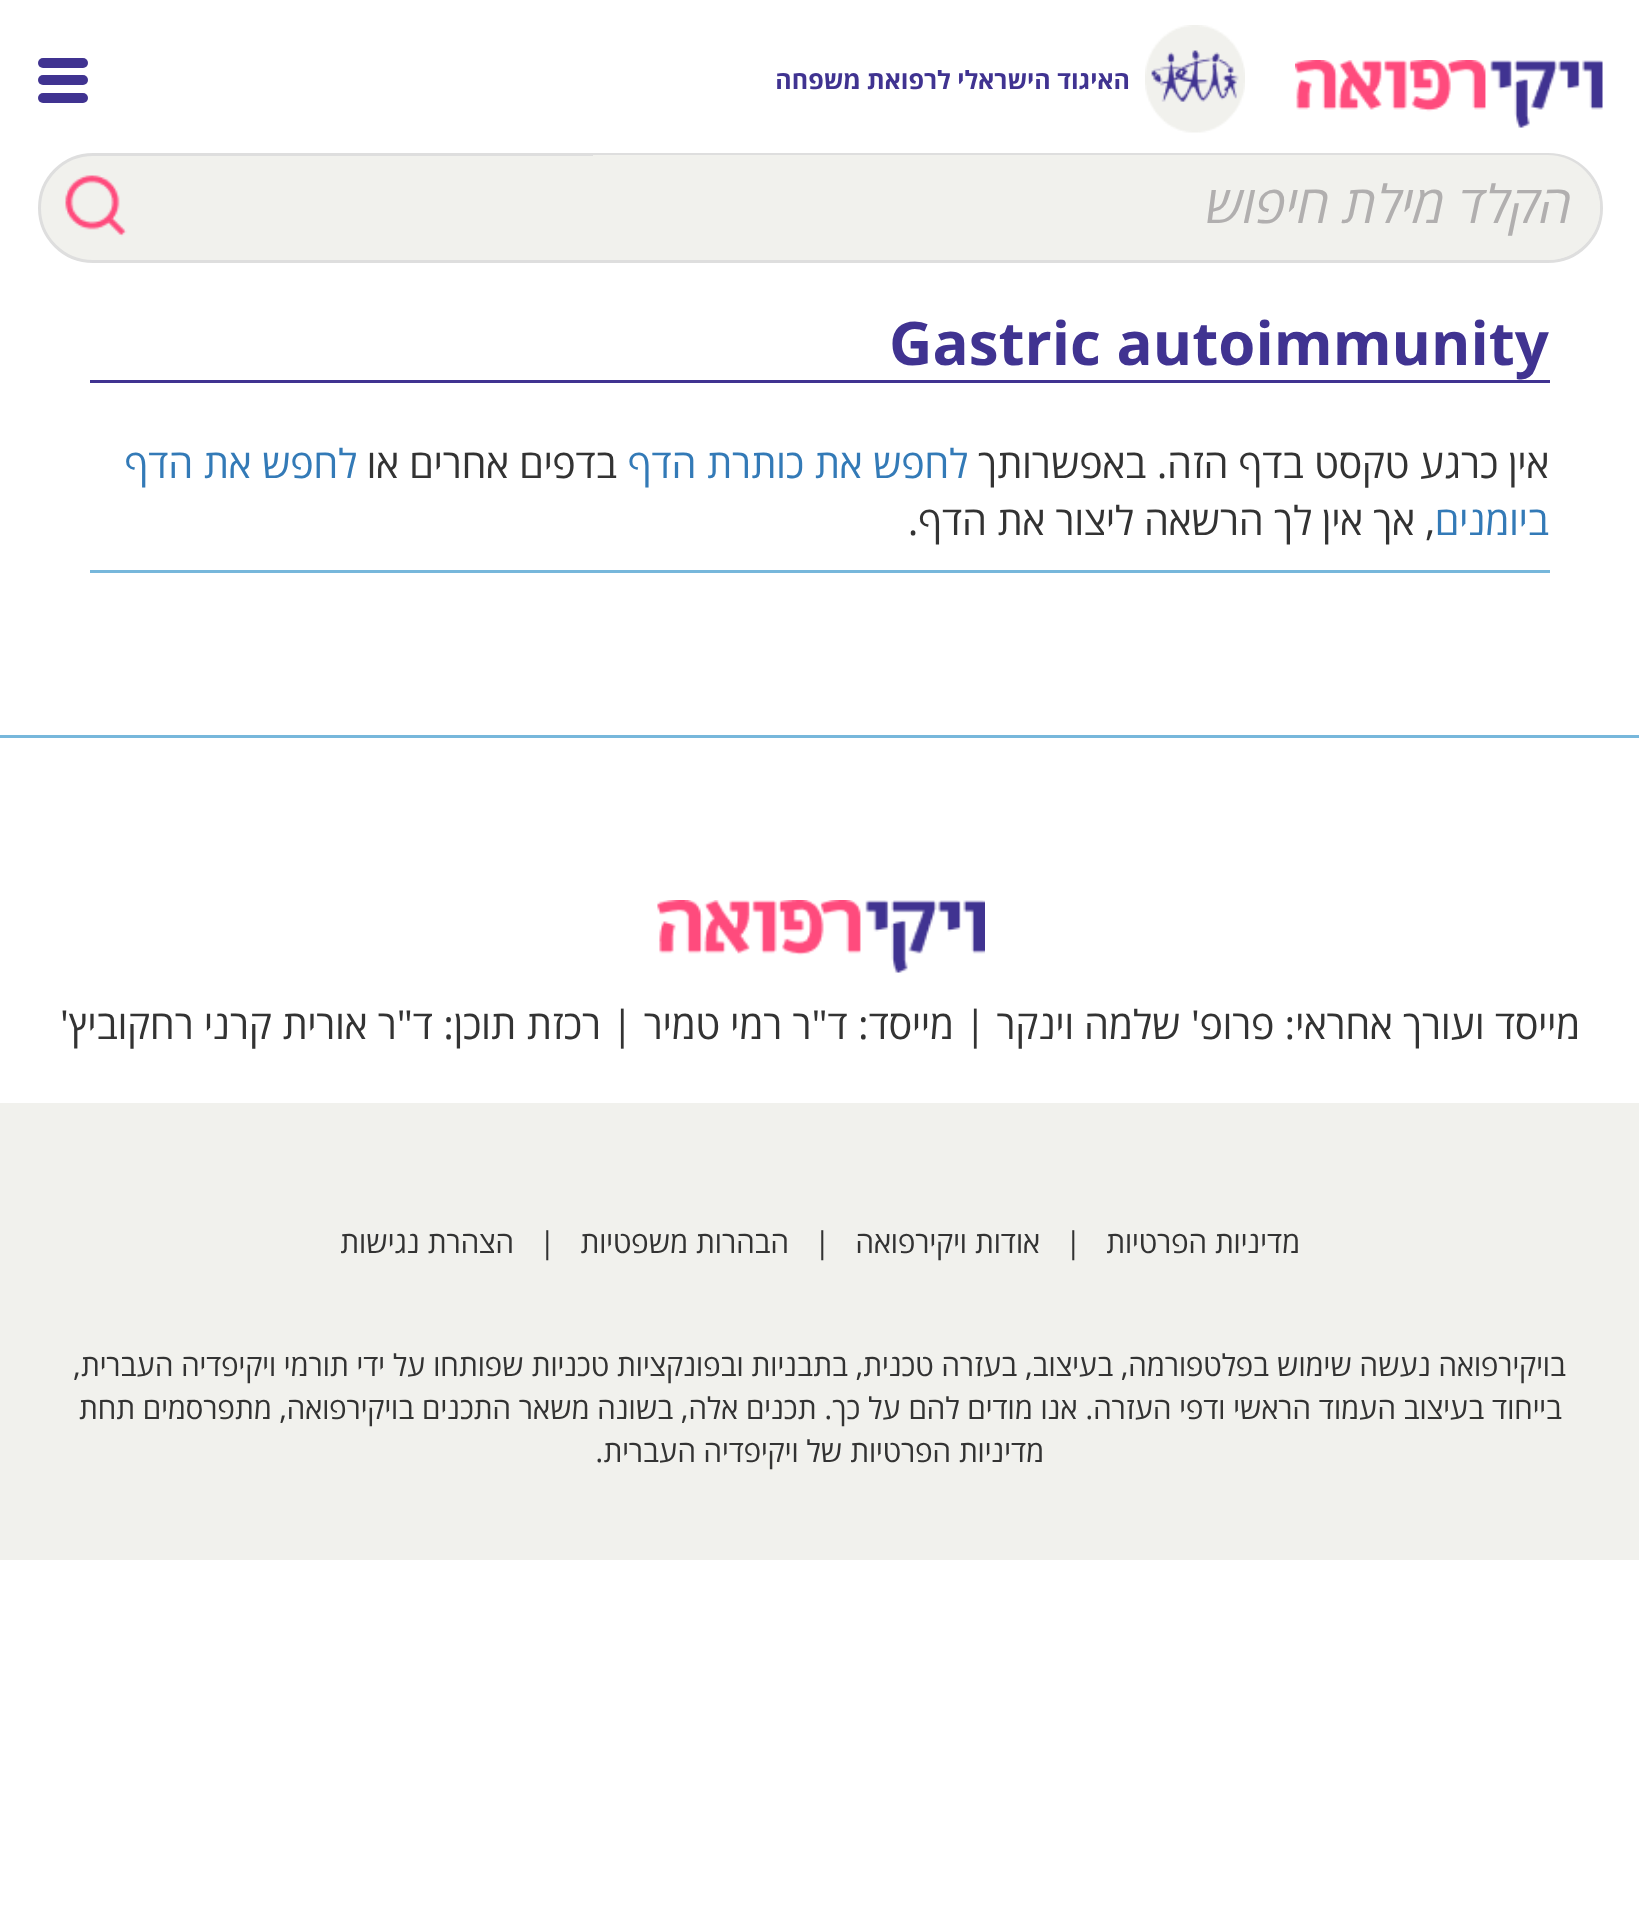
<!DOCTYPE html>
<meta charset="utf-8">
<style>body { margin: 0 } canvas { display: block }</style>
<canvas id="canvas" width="1639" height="1913"></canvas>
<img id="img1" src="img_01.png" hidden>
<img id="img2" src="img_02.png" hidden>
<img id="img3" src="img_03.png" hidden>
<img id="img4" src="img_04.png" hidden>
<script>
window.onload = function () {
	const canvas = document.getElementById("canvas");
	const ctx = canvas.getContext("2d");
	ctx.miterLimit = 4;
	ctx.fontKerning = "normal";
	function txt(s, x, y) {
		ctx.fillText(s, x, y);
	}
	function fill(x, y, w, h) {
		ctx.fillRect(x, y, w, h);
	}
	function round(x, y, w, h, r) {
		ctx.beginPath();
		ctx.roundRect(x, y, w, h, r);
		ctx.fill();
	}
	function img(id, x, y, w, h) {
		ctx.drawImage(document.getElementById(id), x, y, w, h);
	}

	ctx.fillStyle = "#FFFFFF";
	fill(0, 0, 1639, 1913);
	img("img1", 1295, 60, 308, 68);
	img("img2", 1145, 25, 100, 108);
	ctx.fillStyle = "#403391";
	round(38, 58, 50, 10, 5);
	round(38, 75, 50, 10, 5);
	round(38, 93, 50, 10, 5);
	ctx.fillStyle = "#F1F1ED";
	ctx.beginPath();
	ctx.roundRect(39.5, 154.5, 1562, 107, 53.5);
	ctx.fill();
	ctx.strokeStyle = "#DEDEDE";
	ctx.lineWidth = 3;
	ctx.stroke();
	ctx.beginPath();
	ctx.roundRect(593, 155, 1007, 105, [0, 52.5, 52.5, 0]);
	ctx.fill();
	img("img3", 65, 175, 62, 62);
	ctx.fillStyle = "#403391";
	fill(90, 380, 1460, 3);
	ctx.fillStyle = "#77B7DB";
	fill(90, 570, 1460, 3);
	fill(0, 735, 1639, 3);
	img("img4", 657, 900, 328, 73);
	ctx.fillStyle = "#F1F1ED";
	fill(0, 1103, 1639, 457);
	ctx.direction = "rtl";
	ctx.font = "bold 25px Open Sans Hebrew";
	ctx.fillStyle = "#403391";
	txt("האיגוד הישראלי לרפואת משפחה", 1130, 89);
	ctx.font = "italic 52.5px Open Sans Hebrew";
	ctx.fillStyle = "#B1AFAF";
	txt("הקלד מילת חיפוש", 1572, 223);
	ctx.direction = "ltr";
	ctx.font = "bold 60px Open Sans Hebrew";
	ctx.fillStyle = "#403391";
	txt("Gastric autoimmunity", 889, 365);
	ctx.direction = "rtl";
	ctx.font = "40px Open Sans Hebrew";
	ctx.fillStyle = "#333333";
	txt("אין כרגע טקסט בדף הזה. באפשרותך", 1549, 478);
	ctx.fillStyle = "#337AB7";
	txt("לחפש את כותרת הדף", 968, 478);
	ctx.fillStyle = "#333333";
	txt("בדפים אחרים או", 617, 478);
	ctx.fillStyle = "#337AB7";
	txt("לחפש את הדף", 357, 478);
	txt("ביומנים", 1549, 535);
	ctx.fillStyle = "#333333";
	txt(", אך אין לך הרשאה ליצור את הדף.", 1435, 535);
	txt("מייסד ועורך אחראי: פרופ' שלמה וינקר | מייסד: ד\"ר רמי טמיר | רכזת תוכן: ד\"ר אורית קרני רחקוביץ'", 1580, 1039);
	ctx.font = "30px Open Sans Hebrew";
	txt("מדיניות הפרטיות", 1300, 1253);
	ctx.direction = "ltr";
	txt("|", 1065, 1253);
	ctx.direction = "rtl";
	txt("אודות ויקירפואה", 1040, 1253);
	ctx.direction = "ltr";
	txt("|", 814, 1253);
	ctx.direction = "rtl";
	txt("הבהרות משפטיות", 789, 1253);
	ctx.direction = "ltr";
	txt("|", 539, 1253);
	ctx.direction = "rtl";
	txt("הצהרת נגישות", 514, 1253);
	txt("בויקירפואה נעשה שימוש בפלטפורמה, בעיצוב, בעזרה טכנית, בתבניות ובפונקציות טכניות שפותחו על ידי תורמי ויקיפדיה העברית,", 1566, 1376);
	txt("בייחוד בעיצוב העמוד הראשי ודפי העזרה. אנו מודים להם על כך. תכנים אלה, בשונה משאר התכנים בויקירפואה, מתפרסמים תחת", 1562, 1419);
	txt("מדיניות הפרטיות של ויקיפדיה העברית.", 1044, 1462);
};
</script>
